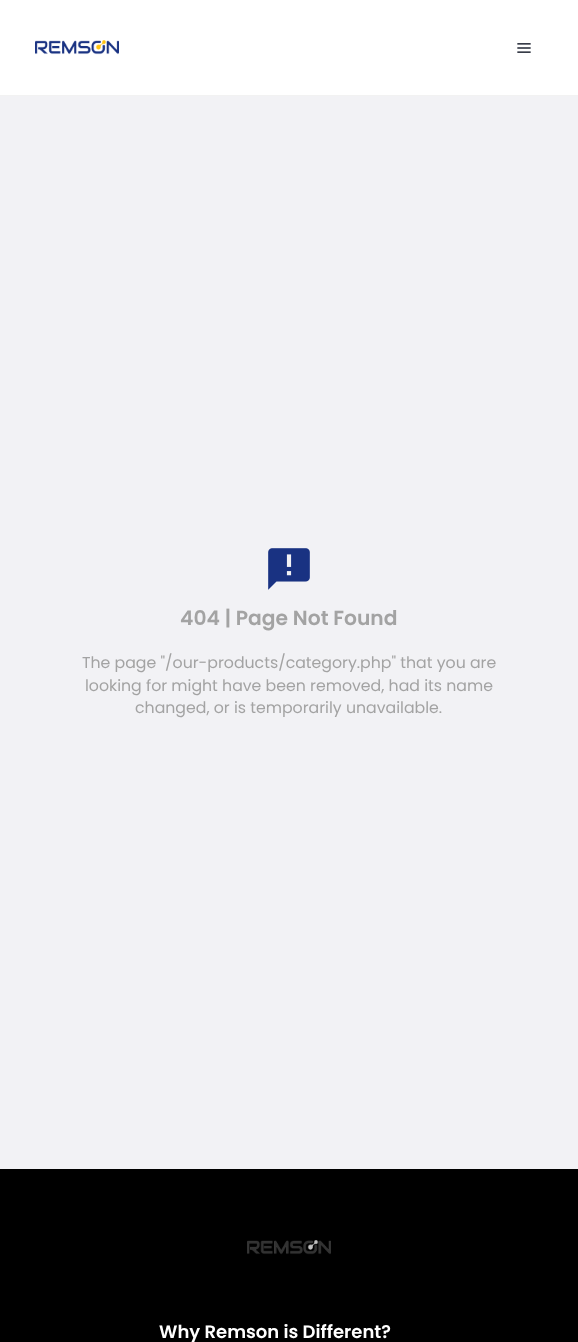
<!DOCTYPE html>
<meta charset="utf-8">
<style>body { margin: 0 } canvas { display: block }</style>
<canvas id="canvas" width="578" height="1342"></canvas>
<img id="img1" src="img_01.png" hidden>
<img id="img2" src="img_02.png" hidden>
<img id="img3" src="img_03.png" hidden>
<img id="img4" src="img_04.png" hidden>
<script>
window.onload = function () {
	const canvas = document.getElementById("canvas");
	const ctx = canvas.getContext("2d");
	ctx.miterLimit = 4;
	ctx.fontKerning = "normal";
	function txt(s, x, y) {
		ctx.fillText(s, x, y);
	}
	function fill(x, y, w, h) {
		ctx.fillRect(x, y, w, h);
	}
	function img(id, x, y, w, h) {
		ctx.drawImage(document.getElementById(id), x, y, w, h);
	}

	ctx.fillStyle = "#F2F2F5";
	fill(0, 0, 578, 1342);
	ctx.fillStyle = "#FFFFFF";
	fill(0, 0, 578, 95);
	ctx.fillStyle = "#F2F2F2";
	fill(0, 95, 578, 1);
	img("img1", 35, 40, 84, 15);
	img("img2", 517, 43, 14, 10);
	img("img3", 268, 548, 42, 42);
	ctx.fillStyle = "#000000";
	fill(0, 1169, 578, 173);
	img("img4", 247, 1240, 84, 15);
	ctx.font = "600 20.25px Poppins";
	ctx.fillStyle = "#A3A3A3";
	txt("404 | Page Not Found", 180, 625);
	ctx.font = "15.75px Poppins";
	txt("The page \"/our-products/category.php\" that you are", 82, 668);
	txt("looking for might have been removed, had its name", 85, 691);
	txt("changed, or is temporarily unavailable.", 135, 713);
	ctx.font = "600 18px Poppins";
	ctx.fillStyle = "#FFFFFF";
	txt("Why Remson is Different?", 159, 1338);
};
</script>
